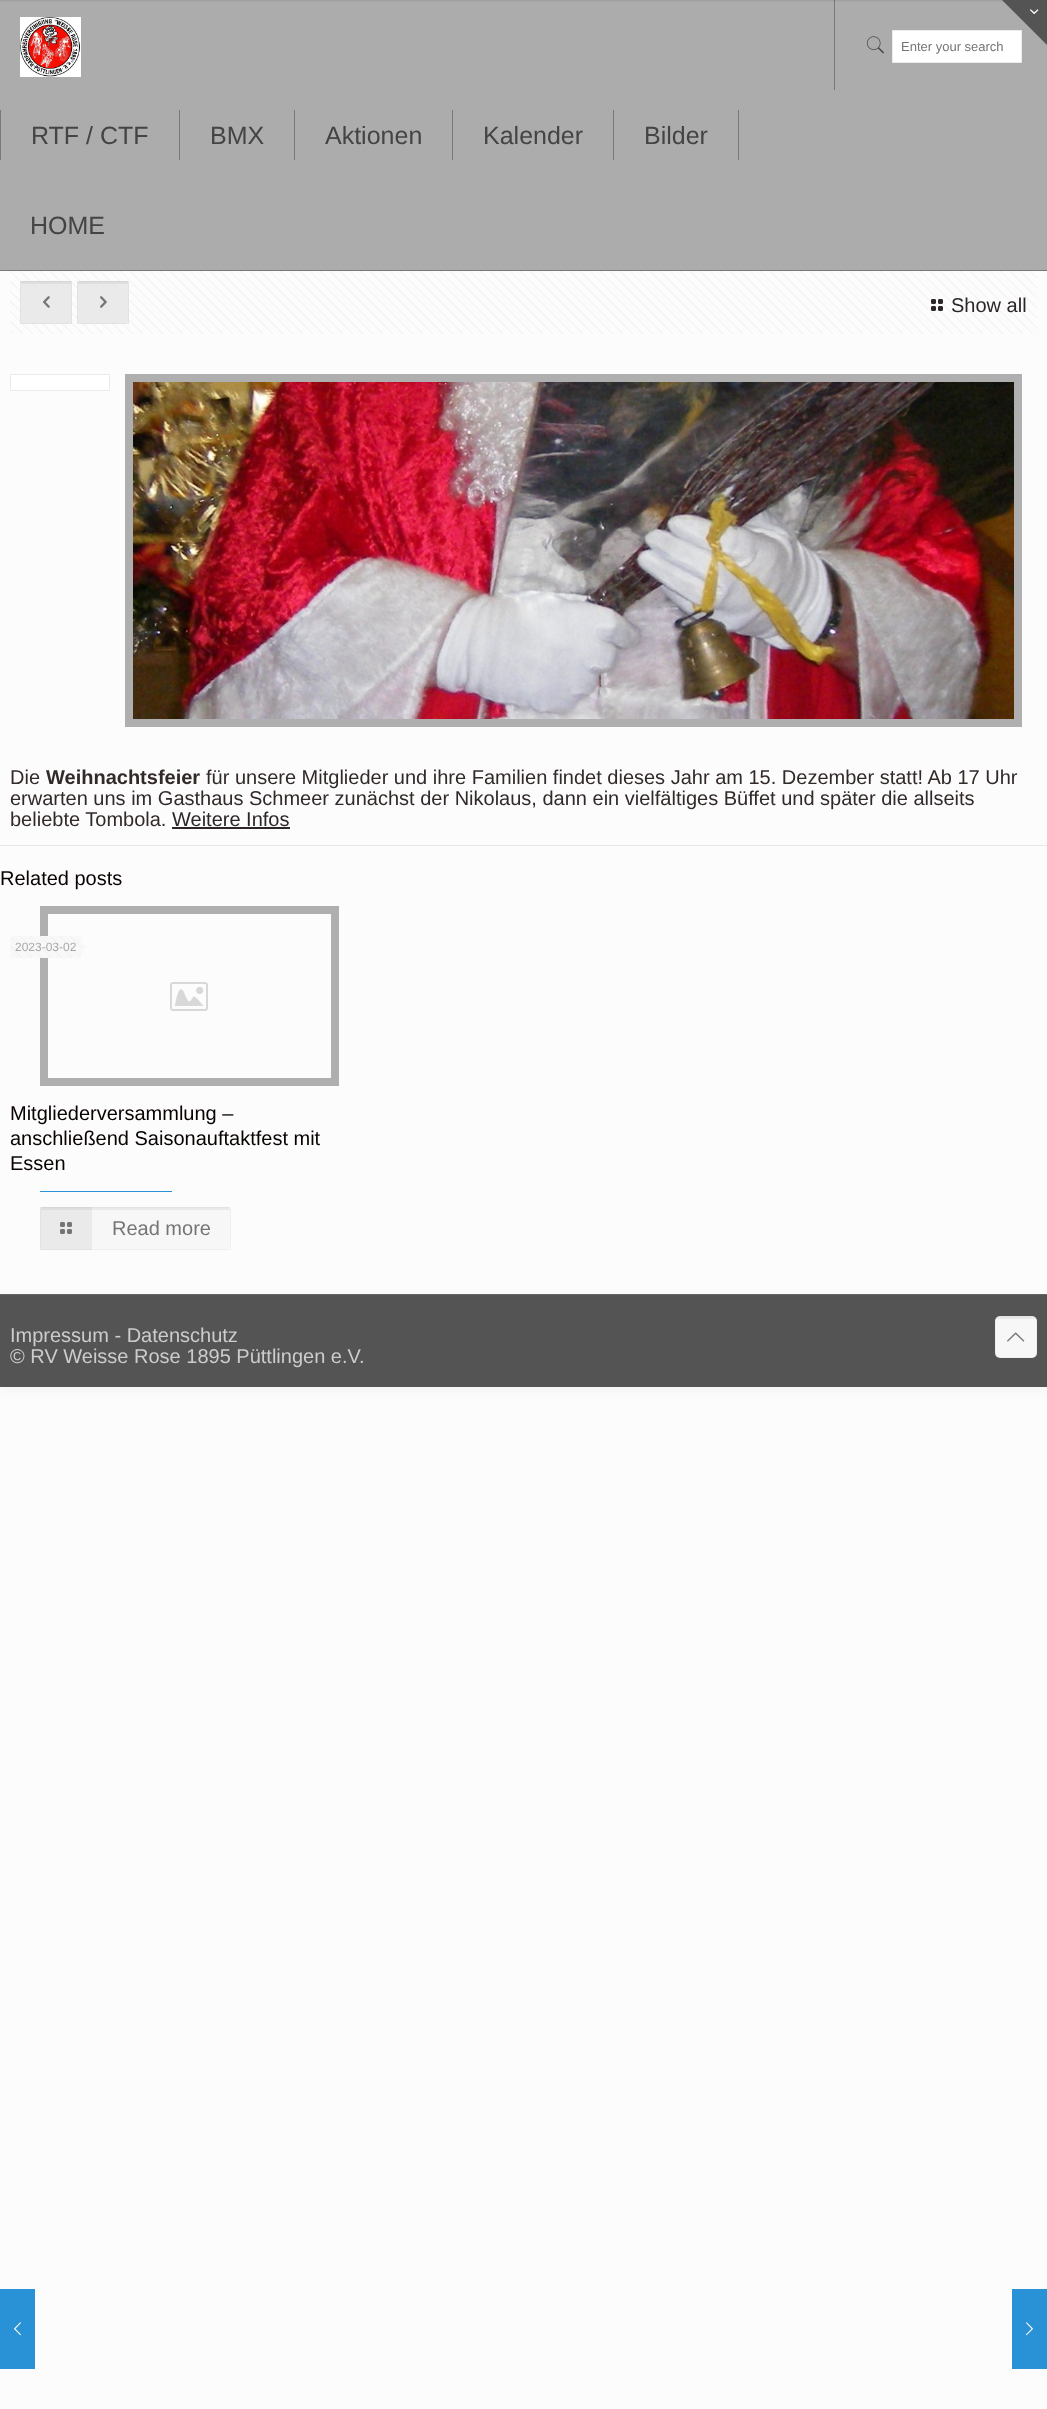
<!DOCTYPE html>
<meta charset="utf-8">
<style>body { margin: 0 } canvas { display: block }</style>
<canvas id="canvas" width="1047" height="2409"></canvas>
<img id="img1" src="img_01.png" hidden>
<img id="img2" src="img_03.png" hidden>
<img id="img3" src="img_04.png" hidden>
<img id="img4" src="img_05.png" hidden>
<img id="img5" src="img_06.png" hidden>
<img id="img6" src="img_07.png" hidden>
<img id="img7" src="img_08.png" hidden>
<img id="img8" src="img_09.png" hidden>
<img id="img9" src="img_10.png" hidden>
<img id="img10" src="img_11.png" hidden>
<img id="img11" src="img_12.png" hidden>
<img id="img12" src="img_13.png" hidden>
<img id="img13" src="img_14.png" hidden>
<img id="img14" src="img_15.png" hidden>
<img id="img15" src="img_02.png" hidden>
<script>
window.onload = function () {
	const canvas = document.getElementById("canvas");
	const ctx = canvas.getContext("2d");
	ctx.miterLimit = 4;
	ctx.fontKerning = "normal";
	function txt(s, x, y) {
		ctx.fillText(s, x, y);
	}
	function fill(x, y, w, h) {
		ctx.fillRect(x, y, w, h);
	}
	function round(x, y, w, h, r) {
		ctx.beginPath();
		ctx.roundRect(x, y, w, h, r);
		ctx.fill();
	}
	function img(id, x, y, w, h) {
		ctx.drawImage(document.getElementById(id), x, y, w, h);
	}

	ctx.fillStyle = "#FCFCFC";
	fill(0, 0, 1047, 2409);
	ctx.fillStyle = "rgba(0, 0, 0, 0.06)";
	ctx.filter = "blur(7.5px)";
	ctx.beginPath();
	ctx.rect(0, 0, 1047, 1387);
	ctx.fill();
	ctx.filter = "none";
	ctx.fillStyle = "#ACACAC";
	fill(0, 0, 1047, 270);
	ctx.fillStyle = "#797979";
	fill(834, 0, 1, 90);
	img("img1", 0, 0, 1004, 2);
	ctx.fillStyle = "#FCFCFC";
	fill(0, 271, 1047, 1023);
	ctx.fillStyle = "#797979";
	fill(0, 270, 1047, 1);
	img("img2", 866, 36, 18, 18);
	ctx.fillStyle = "#FFFFFF";
	ctx.beginPath();
	ctx.rect(892.5, 30.5, 129, 32);
	ctx.fill();
	ctx.strokeStyle = "#EBEBEB";
	ctx.stroke();
	img("img3", 20, 17, 61, 60);
	ctx.fillStyle = "#797979";
	fill(179, 110, 1, 50);
	fill(0, 110, 1, 50);
	fill(294, 110, 1, 50);
	fill(452, 110, 1, 50);
	fill(613, 110, 1, 50);
	fill(738, 110, 1, 50);
	img("img4", 10, 271, 1027, 63);
	ctx.fillStyle = "#F7F7F7";
	round(20, 281, 52, 43, 5);
	ctx.fillStyle = "rgba(0, 0, 0, 0.05)";
	fill(21, 281, 50, 3);
	ctx.strokeStyle = "rgba(0, 0, 0, 0.03)";
	ctx.strokeRect(20.5, 281.5, 51, 42);
	fill(20, 281, 52, 43);
	img("img5", 43, 296, 7, 12);
	ctx.fillStyle = "#F7F7F7";
	round(77, 281, 52, 43, 5);
	ctx.fillStyle = "rgba(0, 0, 0, 0.05)";
	fill(78, 281, 50, 3);
	ctx.strokeRect(77.5, 281.5, 51, 42);
	fill(77, 281, 52, 43);
	img("img6", 100, 296, 7, 12);
	img("img7", 931, 299, 12, 12);
	ctx.fillStyle = "#FFFFFF";
	ctx.beginPath();
	ctx.rect(10.5, 374.5, 99, 16);
	ctx.fill();
	ctx.strokeStyle = "#EBEBEB";
	ctx.stroke();
	ctx.strokeStyle = "#AFAFAF";
	ctx.lineWidth = 8;
	ctx.strokeRect(129, 378, 889, 345);
	img("img8", 133, 382, 881, 337);
	ctx.fillStyle = "#2C2626";
	fill(172, 827, 118, 2);
	ctx.fillStyle = "#E8E8E8";
	fill(0, 845, 1047, 1);
	img("img9", 170, 982, 38, 29);
	ctx.strokeRect(44, 910, 291, 172);
	ctx.fillStyle = "#F8F8F8";
	round(10, 936, 72, 22, 4);
	img("img10", 10, 936, 72, 22);
	ctx.beginPath();
	ctx.moveTo(82, 952);
	ctx.lineTo(82, 942);
	ctx.lineTo(87, 947);
	ctx.closePath();
	ctx.fill();
	ctx.fillStyle = "#2991D6";
	fill(40, 1191, 132, 1);
	ctx.fillStyle = "#F7F7F7";
	round(40, 1207, 191, 43, 5);
	ctx.fillStyle = "rgba(0, 0, 0, 0.05)";
	fill(41, 1207, 189, 3);
	ctx.strokeStyle = "rgba(0, 0, 0, 0.03)";
	ctx.lineWidth = 1;
	ctx.strokeRect(40.5, 1207.5, 190, 42);
	fill(40, 1207, 52, 43);
	img("img11", 60, 1222, 12, 12);
	ctx.fillStyle = "#545454";
	fill(0, 1295, 1047, 92);
	ctx.fillStyle = "#656565";
	fill(0, 1294, 1047, 1);
	ctx.fillStyle = "#F7F7F7";
	round(995, 1316, 42, 42, 5);
	ctx.fillStyle = "rgba(0, 0, 0, 0.05)";
	fill(996, 1316, 40, 3);
	ctx.strokeRect(995.5, 1316.5, 41, 41);
	img("img12", 1007, 1332, 18, 10);
	ctx.fillStyle = "#2991D6";
	fill(0, 2289, 35, 80);
	img("img13", 14, 2322, 7, 14);
	fill(1012, 2289, 35, 80);
	img("img14", 1026, 2322, 7, 14);
	ctx.font = "13px Liberation Sans";
	ctx.fillStyle = "#757575";
	txt("Enter your search", 901, 51);
	ctx.fillStyle = "#545454";
	ctx.beginPath();
	ctx.moveTo(1047, 0);
	ctx.lineTo(1047, 45);
	ctx.lineTo(1002, 0);
	ctx.closePath();
	ctx.fill();
	img("img15", 1030, 9, 9, 5);
	ctx.font = "25px Liberation Sans";
	ctx.fillStyle = "#444444";
	txt("RTF / CTF", 31, 144);
	txt("BMX", 210, 144);
	txt("Aktionen", 325, 144);
	txt("Kalender", 483, 144);
	txt("Bilder", 644, 144);
	txt("HOME", 30, 234);
	ctx.font = "20px Liberation Sans";
	ctx.fillStyle = "#2C2626";
	txt("Show all", 951, 312);
	ctx.fillStyle = "#322929";
	txt("Die", 10, 784);
	ctx.font = "bold 20px Liberation Sans";
	txt("Weihnachtsfeier", 46, 784);
	ctx.font = "20px Liberation Sans";
	txt("für unsere Mitglieder und ihre Familien findet dieses Jahr am 15. Dezember statt! Ab 17 Uhr", 206, 784);
	txt("erwarten uns im Gasthaus Schmeer zunächst der Nikolaus, dann ein vielfältiges Büffet und später die allseits", 10, 805);
	txt("beliebte Tombola.", 10, 826);
	ctx.fillStyle = "#2C2626";
	txt("Weitere Infos", 172, 826);
	ctx.fillStyle = "#090000";
	txt("Related posts", 0, 885);
	ctx.font = "12px Liberation Sans";
	ctx.fillStyle = "#A8A8A8";
	txt("2023-03-02", 15, 951);
	ctx.font = "20px Liberation Sans";
	ctx.fillStyle = "#090000";
	txt("Mitgliederversammlung –", 10, 1120);
	txt("anschließend Saisonauftaktfest mit", 10, 1145);
	txt("Essen", 10, 1170);
	ctx.fillStyle = "#757575";
	txt("Read more", 112, 1235);
	ctx.fillStyle = "#CCCCCC";
	txt("Impressum - Datenschutz", 10, 1342);
	txt("© RV Weisse Rose 1895 Püttlingen e.V.", 10, 1363);
};
</script>
